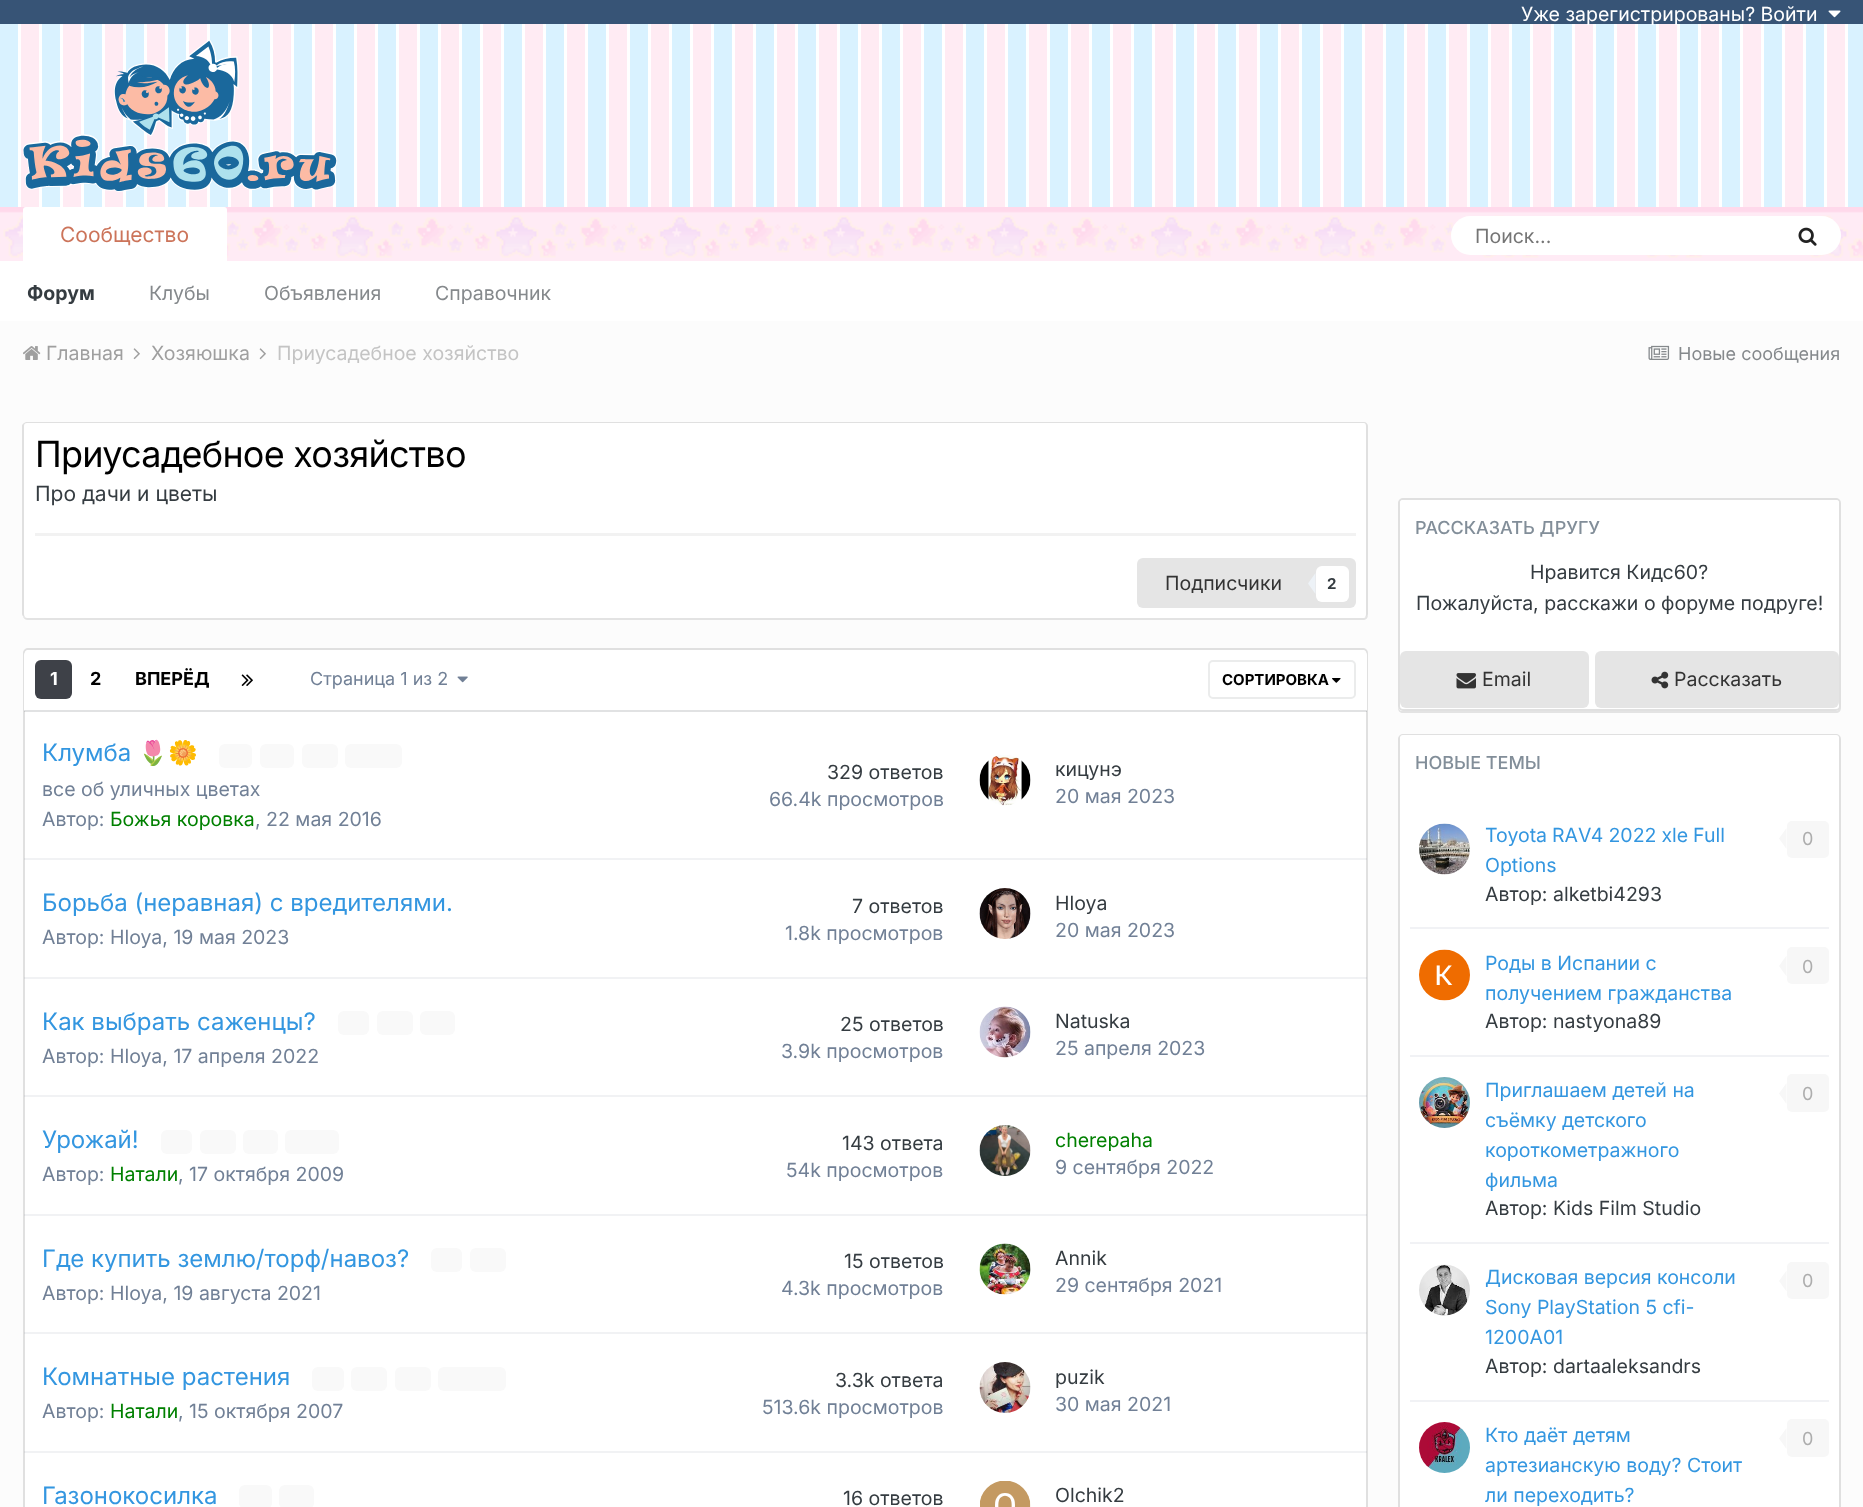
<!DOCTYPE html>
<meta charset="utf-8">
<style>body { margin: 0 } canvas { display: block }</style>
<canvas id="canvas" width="1863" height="1507"></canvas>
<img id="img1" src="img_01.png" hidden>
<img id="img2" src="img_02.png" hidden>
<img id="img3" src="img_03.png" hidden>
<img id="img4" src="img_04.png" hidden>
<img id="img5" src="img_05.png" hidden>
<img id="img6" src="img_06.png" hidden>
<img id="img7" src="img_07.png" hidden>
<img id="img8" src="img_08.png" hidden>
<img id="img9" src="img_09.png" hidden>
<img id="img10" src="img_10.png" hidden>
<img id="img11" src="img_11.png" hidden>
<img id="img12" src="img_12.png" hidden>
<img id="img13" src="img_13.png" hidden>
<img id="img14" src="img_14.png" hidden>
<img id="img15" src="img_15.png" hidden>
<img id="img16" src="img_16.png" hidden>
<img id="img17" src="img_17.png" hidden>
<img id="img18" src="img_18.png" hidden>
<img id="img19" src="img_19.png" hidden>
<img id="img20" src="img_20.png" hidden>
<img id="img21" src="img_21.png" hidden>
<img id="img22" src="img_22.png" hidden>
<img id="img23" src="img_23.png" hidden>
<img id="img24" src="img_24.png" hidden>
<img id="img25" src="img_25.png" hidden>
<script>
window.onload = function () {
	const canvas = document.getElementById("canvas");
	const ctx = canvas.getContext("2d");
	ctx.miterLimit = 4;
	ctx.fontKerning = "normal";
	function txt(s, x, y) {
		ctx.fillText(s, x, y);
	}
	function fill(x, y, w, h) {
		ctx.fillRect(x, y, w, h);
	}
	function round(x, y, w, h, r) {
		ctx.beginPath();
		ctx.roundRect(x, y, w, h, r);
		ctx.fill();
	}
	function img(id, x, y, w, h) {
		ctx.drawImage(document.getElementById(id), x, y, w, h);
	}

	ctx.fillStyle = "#FFFFFF";
	fill(0, 0, 1863, 1507);
	img("img1", 0, 24, 1863, 183);
	ctx.fillStyle = "#375476";
	fill(0, 0, 1863, 24);
	img("img2", 1828, 10, 13, 8);
	img("img3", 23, 40, 315, 152);
	img("img4", 0, 207, 1863, 54);
	ctx.fillStyle = "#FFFFFF";
	ctx.beginPath();
	ctx.roundRect(23, 207, 204, 54, [3, 3, 0, 0]);
	ctx.fill();
	round(1451, 216, 390, 39, 19.5);
	img("img5", 1798, 227, 19, 19);
	ctx.fillStyle = "#FCFCFC";
	fill(0, 321, 1863, 1186);
	img("img6", 23, 346, 18, 14);
	img("img7", 133, 348, 7, 12);
	img("img7", 259, 348, 7, 12);
	img("img8", 1648, 345, 22, 15);
	ctx.fillStyle = "#E3E3E3";
	ctx.beginPath();
	ctx.moveTo(23, 616);
	ctx.bezierCurveTo(23, 618, 25, 620, 28, 620);
	ctx.lineTo(1363, 620);
	ctx.bezierCurveTo(1366, 620, 1368, 618, 1368, 615);
	ctx.lineTo(1368, 614);
	ctx.bezierCurveTo(1368, 616, 1366, 618, 1364, 618);
	ctx.lineTo(27, 618);
	ctx.bezierCurveTo(25, 618, 24, 617, 23, 616);
	ctx.closePath();
	ctx.fill();
	ctx.fillStyle = "#FFFFFF";
	round(23, 422, 1345, 196, 5);
	ctx.fillStyle = "#E0E0E0";
	ctx.beginPath();
	ctx.moveTo(27, 422);
	ctx.lineTo(1364, 422);
	ctx.bezierCurveTo(1366, 422, 1368, 424, 1368, 426);
	ctx.lineTo(1368, 614);
	ctx.bezierCurveTo(1368, 616, 1366, 618, 1364, 618);
	ctx.lineTo(27, 618);
	ctx.bezierCurveTo(25, 618, 22, 616, 22, 614);
	ctx.lineTo(22, 426);
	ctx.bezierCurveTo(22, 424, 25, 422, 27, 422);
	ctx.closePath();
	ctx.moveTo(27, 423);
	ctx.lineTo(1364, 423);
	ctx.bezierCurveTo(1365, 423, 1366, 424, 1366, 426);
	ctx.lineTo(1366, 614);
	ctx.bezierCurveTo(1366, 616, 1365, 618, 1364, 618);
	ctx.lineTo(27, 618);
	ctx.bezierCurveTo(25, 618, 24, 616, 24, 614);
	ctx.lineTo(24, 426);
	ctx.bezierCurveTo(24, 424, 25, 423, 27, 423);
	ctx.closePath();
	ctx.fill("evenodd");
	ctx.fillStyle = "#F2F2F2";
	fill(35, 533, 1321, 3);
	ctx.fillStyle = "#E5E5E5";
	round(1137, 558, 219, 50, 6);
	ctx.fillStyle = "#EDF2F7";
	ctx.beginPath();
	ctx.moveTo(1315.5, 573);
	ctx.lineTo(1315.5, 594);
	ctx.lineTo(1308, 583.5);
	ctx.closePath();
	ctx.fill();
	ctx.fillStyle = "#FFFFFF";
	round(1316, 566, 33, 36, 6);
	ctx.beginPath();
	ctx.roundRect(24, 649, 1343, 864, 4);
	ctx.fill();
	ctx.strokeStyle = "#E0E0E0";
	ctx.lineWidth = 2;
	ctx.stroke();
	ctx.beginPath();
	ctx.roundRect(24, 650, 1343, 61, [5, 5, 0, 0]);
	ctx.fill();
	ctx.fillStyle = "rgba(53, 60, 65, 0.15)";
	fill(24, 710, 1343, 2);
	ctx.fillStyle = "#3E4148";
	round(35, 660, 37, 39, 6);
	img("img9", 241, 674, 12, 12);
	img("img10", 457, 676, 11, 7);
	img("img11", 1332, 678, 9, 5);
	ctx.beginPath();
	ctx.roundRect(1209, 661, 146, 37, 4);
	ctx.strokeStyle = "#EBECEC";
	ctx.stroke();
	ctx.fillStyle = "rgba(113, 128, 150, 0.1)";
	fill(24, 858, 1343, 2);
	ctx.fillStyle = "#F9F9F9";
	round(219, 744, 33, 24, 6);
	round(260, 744, 34, 24, 6);
	round(302, 744, 36, 24, 6);
	round(345, 744, 57, 24, 6);
	img("img12", 979, 755, 52, 51);
	ctx.fillStyle = "rgba(113, 128, 150, 0.1)";
	fill(24, 977, 1343, 2);
	img("img13", 979, 888, 52, 51);
	fill(24, 1095, 1343, 2);
	ctx.fillStyle = "#F9F9F9";
	round(338, 1011, 31, 24, 6);
	round(377, 1011, 36, 24, 6);
	round(420, 1011, 35, 24, 6);
	img("img14", 979, 1006, 52, 52);
	ctx.fillStyle = "rgba(113, 128, 150, 0.1)";
	fill(24, 1214, 1343, 2);
	ctx.fillStyle = "#F9F9F9";
	round(161, 1130, 31, 24, 6);
	round(200, 1130, 36, 24, 6);
	round(243, 1130, 35, 24, 6);
	round(285, 1130, 54, 24, 6);
	img("img15", 979, 1125, 52, 51);
	ctx.fillStyle = "rgba(113, 128, 150, 0.1)";
	fill(24, 1332, 1343, 2);
	ctx.fillStyle = "#F9F9F9";
	round(431, 1248, 31, 24, 6);
	round(470, 1248, 36, 24, 6);
	img("img16", 979, 1243, 52, 52);
	ctx.fillStyle = "rgba(113, 128, 150, 0.1)";
	fill(24, 1451, 1343, 2);
	ctx.fillStyle = "#F9F9F9";
	round(312, 1367, 32, 24, 6);
	round(351, 1367, 36, 24, 6);
	round(395, 1367, 36, 24, 6);
	round(438, 1367, 68, 24, 6);
	img("img17", 979, 1362, 52, 51);
	round(239, 1485, 33, 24, 6);
	round(279, 1485, 35, 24, 6);
	img("img18", 980, 1481, 51, 26);
	ctx.fillStyle = "#E3E3E3";
	ctx.beginPath();
	ctx.moveTo(1398, 706);
	ctx.lineTo(1398, 708);
	ctx.bezierCurveTo(1398, 711, 1400, 713, 1403, 713);
	ctx.lineTo(1836, 713);
	ctx.bezierCurveTo(1839, 713, 1841, 711, 1841, 708);
	ctx.lineTo(1841, 505);
	ctx.lineTo(1840, 503);
	ctx.lineTo(1840, 706);
	ctx.bezierCurveTo(1840, 709, 1838, 711, 1836, 711);
	ctx.lineTo(1402, 711);
	ctx.bezierCurveTo(1400, 711, 1398, 709, 1398, 706);
	ctx.closePath();
	ctx.fill();
	ctx.fillStyle = "#FFFFFF";
	ctx.beginPath();
	ctx.roundRect(1399, 499, 441, 211, 4);
	ctx.fill();
	ctx.strokeStyle = "#E0E0E0";
	ctx.stroke();
	ctx.beginPath();
	ctx.roundRect(1400, 500, 439, 57, [3, 3, 0, 0]);
	ctx.fill();
	ctx.fillStyle = "#E5E5E5";
	round(1400, 651, 189, 57, 6);
	img("img19", 1456, 673, 20, 16);
	round(1595, 651, 244, 57, 6);
	img("img20", 1651, 671, 18, 18);
	ctx.fillStyle = "#FFFFFF";
	ctx.beginPath();
	ctx.roundRect(1399, 735, 441, 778, 4);
	ctx.fill();
	ctx.stroke();
	ctx.beginPath();
	ctx.roundRect(1400, 735, 439, 57, [3, 3, 0, 0]);
	ctx.fill();
	ctx.fillStyle = "#F1F2F5";
	fill(1410, 927, 419, 2);
	img("img21", 1419, 823, 51, 52);
	ctx.fillStyle = "#F7F7F7";
	round(1787, 821, 42, 37, 5);
	ctx.beginPath();
	ctx.moveTo(1786.5, 828);
	ctx.lineTo(1786.5, 849);
	ctx.lineTo(1779, 838.5);
	ctx.closePath();
	ctx.fill();
	ctx.fillStyle = "#F1F2F5";
	fill(1410, 1055, 419, 2);
	img("img22", 1419, 949, 51, 52);
	ctx.fillStyle = "#F7F7F7";
	round(1787, 947, 42, 37, 5);
	ctx.beginPath();
	ctx.moveTo(1786.5, 955.5);
	ctx.lineTo(1786.5, 976.5);
	ctx.lineTo(1779, 966);
	ctx.closePath();
	ctx.fill();
	ctx.fillStyle = "#F1F2F5";
	fill(1410, 1242, 419, 2);
	img("img23", 1419, 1077, 51, 51);
	ctx.fillStyle = "#F7F7F7";
	round(1787, 1074, 42, 38, 5);
	ctx.beginPath();
	ctx.moveTo(1786.5, 1083);
	ctx.lineTo(1786.5, 1104);
	ctx.lineTo(1779, 1093.5);
	ctx.closePath();
	ctx.fill();
	ctx.fillStyle = "#F1F2F5";
	fill(1410, 1400, 419, 2);
	img("img24", 1419, 1264, 51, 52);
	ctx.fillStyle = "#F7F7F7";
	round(1787, 1262, 42, 37, 5);
	ctx.beginPath();
	ctx.moveTo(1786.5, 1270.5);
	ctx.lineTo(1786.5, 1291.5);
	ctx.lineTo(1779, 1281);
	ctx.closePath();
	ctx.fill();
	img("img25", 1419, 1422, 51, 51);
	round(1787, 1419, 42, 38, 5);
	ctx.beginPath();
	ctx.moveTo(1786.5, 1428);
	ctx.lineTo(1786.5, 1449);
	ctx.lineTo(1779, 1438.5);
	ctx.closePath();
	ctx.fill();
	ctx.font = "19.5px Inter";
	ctx.fillStyle = "#FFFFFF";
	txt("Уже зарегистрированы? Войти", 1521, 21);
	ctx.font = "21px Inter";
	ctx.fillStyle = "#CC745A";
	txt("Сообщество", 60, 242);
	ctx.font = "bold 19.5px Inter";
	ctx.fillStyle = "#353C41";
	txt("Форум", 27, 300);
	ctx.font = "19.5px Inter";
	ctx.fillStyle = "#85898C";
	txt("Клубы", 149, 300);
	txt("Объявления", 264, 300);
	txt("Справочник", 435, 300);
	ctx.fillStyle = "#757575";
	txt("Поиск...", 1475, 243);
	ctx.fillStyle = "#9F9F9F";
	txt("Главная", 46, 360);
	txt("Хозяюшка", 151, 360);
	ctx.fillStyle = "#C4C4C4";
	txt("Приусадебное хозяйство", 277, 360);
	ctx.font = "18px Inter";
	ctx.fillStyle = "#85898C";
	txt("Новые сообщения", 1678, 360);
	ctx.letterSpacing = "-0.75px";
	ctx.font = "36px Inter";
	ctx.fillStyle = "#000000";
	txt("Приусадебное хозяйство", 35, 467);
	ctx.letterSpacing = "0px";
	ctx.font = "21px Inter";
	ctx.fillStyle = "#353C41";
	txt("Про дачи и цветы", 35, 501);
	ctx.font = "19.5px Inter";
	ctx.fillStyle = "#333333";
	txt("Подписчики", 1165, 590);
	ctx.font = "bold 15px Inter";
	ctx.fillStyle = "#353C41";
	txt("2", 1327, 589);
	ctx.font = "bold 18px Inter";
	ctx.fillStyle = "#FFFFFF";
	txt("1", 50, 685);
	ctx.fillStyle = "#000000";
	txt("2", 90, 685);
	txt("ВПЕРЁД", 135, 685);
	ctx.font = "18px Inter";
	ctx.fillStyle = "#718096";
	txt("Страница 1 из 2", 310, 685);
	ctx.font = "bold 15px Inter";
	ctx.fillStyle = "#000000";
	txt("СОРТИРОВКА", 1222, 685);
	ctx.font = "24px Inter";
	ctx.fillStyle = "#3396E0";
	txt("Клумба", 42, 761);
	ctx.font = "24px Noto Color Emoji";
	txt("🌷🌼", 138, 761);
	ctx.font = "19.5px Inter";
	ctx.fillStyle = "#718096";
	txt("все об уличных цветах", 42, 796);
	txt("Автор:", 42, 826);
	ctx.fillStyle = "#008000";
	txt("Божья коровка", 110, 826);
	ctx.fillStyle = "#718096";
	txt(", 22 мая 2016", 255, 826);
	ctx.fillStyle = "#353C41";
	txt("329 ответов", 827, 779);
	ctx.fillStyle = "#718096";
	txt("66.4k просмотров", 769, 806);
	ctx.fillStyle = "#353C41";
	txt("кицунэ", 1055, 776);
	ctx.fillStyle = "#718096";
	txt("20 мая 2023", 1055, 803);
	ctx.font = "24px Inter";
	ctx.fillStyle = "#3396E0";
	txt("Борьба (неравная) с вредителями.", 42, 911);
	ctx.font = "19.5px Inter";
	ctx.fillStyle = "#718096";
	txt("Автор: Hloya, 19 мая 2023", 42, 944);
	ctx.fillStyle = "#353C41";
	txt("7 ответов", 852, 913);
	ctx.fillStyle = "#718096";
	txt("1.8k просмотров", 785, 940);
	ctx.fillStyle = "#353C41";
	txt("Hloya", 1055, 910);
	ctx.fillStyle = "#718096";
	txt("20 мая 2023", 1055, 937);
	ctx.font = "24px Inter";
	ctx.fillStyle = "#3396E0";
	txt("Как выбрать саженцы?", 42, 1030);
	ctx.font = "19.5px Inter";
	ctx.fillStyle = "#718096";
	txt("Автор: Hloya, 17 апреля 2022", 42, 1063);
	ctx.fillStyle = "#353C41";
	txt("25 ответов", 840, 1031);
	ctx.fillStyle = "#718096";
	txt("3.9k просмотров", 781, 1058);
	ctx.fillStyle = "#353C41";
	txt("Natuska", 1055, 1028);
	ctx.fillStyle = "#718096";
	txt("25 апреля 2023", 1055, 1055);
	ctx.font = "24px Inter";
	ctx.fillStyle = "#3396E0";
	txt("Урожай!", 42, 1148);
	ctx.font = "19.5px Inter";
	ctx.fillStyle = "#718096";
	txt("Автор:", 42, 1181);
	ctx.fillStyle = "#008000";
	txt("Натали", 110, 1181);
	ctx.fillStyle = "#718096";
	txt(", 17 октября 2009", 178, 1181);
	ctx.fillStyle = "#353C41";
	txt("143 ответа", 842, 1150);
	ctx.fillStyle = "#718096";
	txt("54k просмотров", 786, 1177);
	ctx.fillStyle = "#008000";
	txt("cherepaha", 1055, 1147);
	ctx.fillStyle = "#718096";
	txt("9 сентября 2022", 1055, 1174);
	ctx.font = "24px Inter";
	ctx.fillStyle = "#3396E0";
	txt("Где купить землю/торф/навоз?", 42, 1267);
	ctx.font = "19.5px Inter";
	ctx.fillStyle = "#718096";
	txt("Автор: Hloya, 19 августа 2021", 42, 1300);
	ctx.fillStyle = "#353C41";
	txt("15 ответов", 844, 1268);
	ctx.fillStyle = "#718096";
	txt("4.3k просмотров", 781, 1295);
	ctx.fillStyle = "#353C41";
	txt("Annik", 1055, 1265);
	ctx.fillStyle = "#718096";
	txt("29 сентября 2021", 1055, 1292);
	ctx.font = "24px Inter";
	ctx.fillStyle = "#3396E0";
	txt("Комнатные растения", 42, 1385);
	ctx.font = "19.5px Inter";
	ctx.fillStyle = "#718096";
	txt("Автор:", 42, 1418);
	ctx.fillStyle = "#008000";
	txt("Натали", 110, 1418);
	ctx.fillStyle = "#718096";
	txt(", 15 октября 2007", 178, 1418);
	ctx.fillStyle = "#353C41";
	txt("3.3k ответа", 835, 1387);
	ctx.fillStyle = "#718096";
	txt("513.6k просмотров", 762, 1414);
	ctx.fillStyle = "#353C41";
	txt("puzik", 1055, 1384);
	ctx.fillStyle = "#718096";
	txt("30 мая 2021", 1055, 1411);
	ctx.font = "24px Inter";
	ctx.fillStyle = "#3396E0";
	txt("Газонокосилка", 42, 1504);
	ctx.font = "19.5px Inter";
	ctx.fillStyle = "#353C41";
	txt("16 ответов", 843, 1505);
	txt("Olchik2", 1055, 1502);
	ctx.font = "500 18px Inter";
	ctx.fillStyle = "#828E99";
	txt("РАССКАЗАТЬ ДРУГУ", 1415, 534);
	ctx.font = "19.5px Inter";
	ctx.fillStyle = "#353C41";
	txt("Нравится Кидс60?", 1530, 579);
	txt("Пожалуйста, расскажи о форуме подруге!", 1416, 610);
	ctx.fillStyle = "#333333";
	txt("Email", 1482, 686);
	txt("Рассказать", 1674, 686);
	ctx.font = "500 18px Inter";
	ctx.fillStyle = "#828E99";
	txt("НОВЫЕ ТЕМЫ", 1415, 769);
	ctx.wordSpacing = "-0.5px";
	ctx.font = "19.5px Inter";
	ctx.fillStyle = "#3396E0";
	txt("Toyota RAV4 2022 xle Full", 1485, 842);
	ctx.wordSpacing = "0px";
	txt("Options", 1485, 872);
	ctx.font = "18px Inter";
	ctx.fillStyle = "#ADADAD";
	txt("0", 1802, 845);
	ctx.font = "19.5px Inter";
	ctx.fillStyle = "#353C41";
	txt("Автор: alketbi4293", 1485, 901);
	ctx.fillStyle = "#3396E0";
	txt("Роды в Испании с", 1485, 970);
	txt("получением гражданства", 1485, 1000);
	ctx.font = "18px Inter";
	ctx.fillStyle = "#ADADAD";
	txt("0", 1802, 973);
	ctx.font = "19.5px Inter";
	ctx.fillStyle = "#353C41";
	txt("Автор: nastyona89", 1485, 1028);
	ctx.fillStyle = "#3396E0";
	txt("Приглашаем детей на", 1485, 1097);
	txt("съёмку детского", 1485, 1127);
	txt("короткометражного", 1485, 1157);
	txt("фильма", 1485, 1187);
	ctx.font = "18px Inter";
	ctx.fillStyle = "#ADADAD";
	txt("0", 1802, 1100);
	ctx.font = "19.5px Inter";
	ctx.fillStyle = "#353C41";
	txt("Автор: Kids Film Studio", 1485, 1215);
	ctx.fillStyle = "#3396E0";
	txt("Дисковая версия консоли", 1485, 1284);
	txt("Sony PlayStation 5 cfi-", 1485, 1314);
	txt("1200A01", 1485, 1344);
	ctx.font = "18px Inter";
	ctx.fillStyle = "#ADADAD";
	txt("0", 1802, 1287);
	ctx.font = "19.5px Inter";
	ctx.fillStyle = "#353C41";
	txt("Автор: dartaaleksandrs", 1485, 1373);
	ctx.fillStyle = "#3396E0";
	txt("Кто даёт детям", 1485, 1442);
	txt("артезианскую воду? Стоит", 1485, 1472);
	txt("ли переходить?", 1485, 1502);
	ctx.font = "18px Inter";
	ctx.fillStyle = "#ADADAD";
	txt("0", 1802, 1445);
};
</script>
